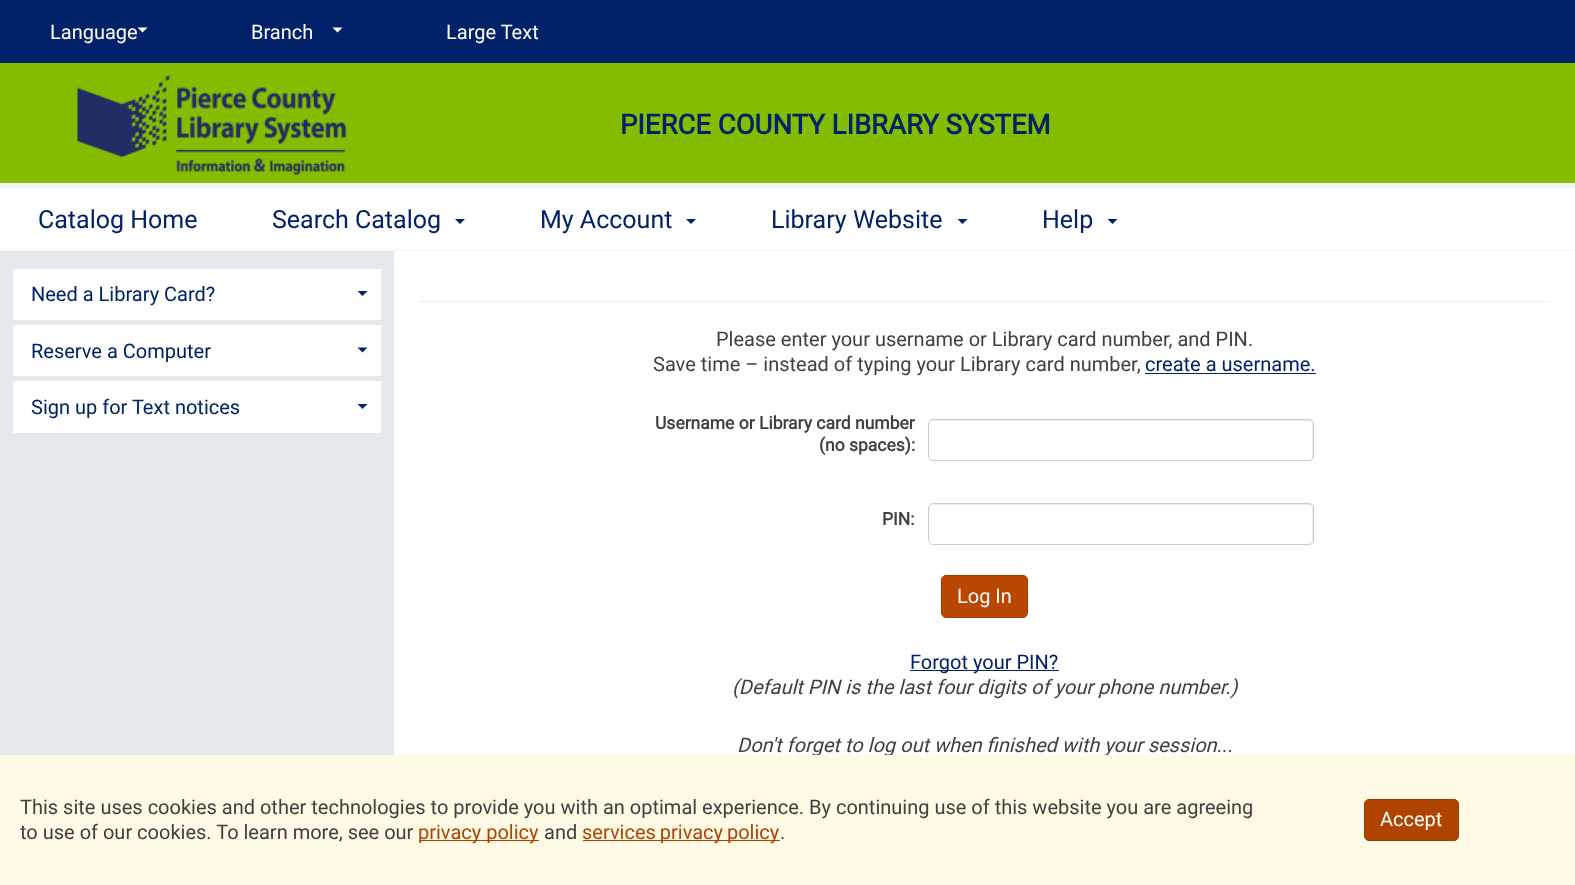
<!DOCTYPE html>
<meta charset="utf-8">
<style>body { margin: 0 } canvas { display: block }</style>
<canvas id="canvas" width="1575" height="885"></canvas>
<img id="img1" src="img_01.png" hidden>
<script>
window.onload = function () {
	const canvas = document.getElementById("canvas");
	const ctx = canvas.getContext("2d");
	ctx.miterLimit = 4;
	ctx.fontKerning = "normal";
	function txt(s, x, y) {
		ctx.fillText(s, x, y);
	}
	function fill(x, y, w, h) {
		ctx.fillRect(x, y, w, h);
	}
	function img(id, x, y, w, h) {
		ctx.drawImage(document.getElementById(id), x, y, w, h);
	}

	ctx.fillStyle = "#012169";
	fill(0, 0, 1575, 885);
	ctx.fillStyle = "#F1F3F5";
	fill(0, 250, 1575, 1);
	ctx.fillStyle = "#FFFFFF";
	ctx.beginPath();
	ctx.moveTo(137.5, 27.5);
	ctx.lineTo(147.5, 27.5);
	ctx.lineTo(142.5, 32.5);
	ctx.closePath();
	ctx.fill();
	ctx.beginPath();
	ctx.moveTo(332.5, 27.5);
	ctx.lineTo(342.5, 27.5);
	ctx.lineTo(337.5, 32.5);
	ctx.closePath();
	ctx.fill();
	fill(0, 188, 1575, 62);
	ctx.fillStyle = "#F1F3F5";
	fill(0, 183, 1575, 5);
	ctx.fillStyle = "#012169";
	ctx.beginPath();
	ctx.moveTo(455, 219);
	ctx.lineTo(465, 219);
	ctx.lineTo(460, 224);
	ctx.closePath();
	ctx.fill();
	ctx.beginPath();
	ctx.moveTo(686, 219);
	ctx.lineTo(696, 219);
	ctx.lineTo(691, 224);
	ctx.closePath();
	ctx.fill();
	ctx.beginPath();
	ctx.moveTo(957.5, 219);
	ctx.lineTo(967.5, 219);
	ctx.lineTo(962.5, 224);
	ctx.closePath();
	ctx.fill();
	ctx.beginPath();
	ctx.moveTo(1107.5, 219);
	ctx.lineTo(1117.5, 219);
	ctx.lineTo(1112.5, 224);
	ctx.closePath();
	ctx.fill();
	ctx.fillStyle = "#84BD00";
	fill(0, 63, 1575, 120);
	img("img1", 77, 75, 270, 101);
	ctx.fillStyle = "#E5E9EC";
	fill(0, 251, 394, 504);
	ctx.fillStyle = "#FFFFFF";
	fill(13, 269, 368, 51);
	ctx.fillStyle = "#012169";
	ctx.beginPath();
	ctx.moveTo(357.5, 291);
	ctx.lineTo(367.5, 291);
	ctx.lineTo(362.5, 296);
	ctx.closePath();
	ctx.fill();
	ctx.fillStyle = "#FFFFFF";
	fill(13, 325, 368, 51);
	ctx.fillStyle = "#012169";
	ctx.beginPath();
	ctx.moveTo(357.5, 347.5);
	ctx.lineTo(367.5, 347.5);
	ctx.lineTo(362.5, 352.5);
	ctx.closePath();
	ctx.fill();
	ctx.fillStyle = "#FFFFFF";
	fill(13, 381, 368, 52);
	ctx.fillStyle = "#012169";
	ctx.beginPath();
	ctx.moveTo(357.5, 404);
	ctx.lineTo(367.5, 404);
	ctx.lineTo(362.5, 409);
	ctx.closePath();
	ctx.fill();
	ctx.fillStyle = "#FFFFFF";
	fill(394, 251, 1181, 504);
	ctx.fillStyle = "#EEEEEE";
	fill(419, 301, 1131, 1);
	ctx.fillStyle = "#012169";
	fill(1145, 373, 171, 1);
	ctx.fillStyle = "#ECECEC";
	ctx.beginPath();
	ctx.moveTo(932, 421);
	ctx.lineTo(1309, 421);
	ctx.bezierCurveTo(1311, 421, 1312, 423, 1312, 425);
	ctx.lineTo(1312, 459);
	ctx.bezierCurveTo(1313, 458, 1313, 457, 1313, 456);
	ctx.lineTo(1313, 424);
	ctx.bezierCurveTo(1313, 422, 1311, 420, 1309, 420);
	ctx.lineTo(933, 420);
	ctx.bezierCurveTo(931, 420, 929, 422, 929, 424);
	ctx.lineTo(929, 425);
	ctx.bezierCurveTo(929, 423, 930, 421, 932, 421);
	ctx.closePath();
	ctx.fill();
	ctx.beginPath();
	ctx.roundRect(928.5, 419.5, 385, 41, 4.5);
	ctx.strokeStyle = "#CCCCCC";
	ctx.stroke();
	ctx.beginPath();
	ctx.moveTo(932, 505);
	ctx.lineTo(1309, 505);
	ctx.bezierCurveTo(1314, 505, 1312, 518, 1312, 520);
	ctx.lineTo(1312, 543);
	ctx.bezierCurveTo(1312, 542, 1313, 541, 1313, 540);
	ctx.lineTo(1313, 508);
	ctx.bezierCurveTo(1313, 506, 1311, 504, 1309, 504);
	ctx.lineTo(933, 504);
	ctx.bezierCurveTo(931, 504, 929, 506, 929, 508);
	ctx.lineTo(929, 509);
	ctx.bezierCurveTo(929, 507, 930, 505, 932, 505);
	ctx.closePath();
	ctx.fill();
	ctx.beginPath();
	ctx.roundRect(928.5, 503.5, 385, 41, 4.5);
	ctx.stroke();
	ctx.fillStyle = "#B94700";
	ctx.beginPath();
	ctx.roundRect(941.5, 575.5, 86, 42, 4.5);
	ctx.fill();
	ctx.strokeStyle = "#A03D00";
	ctx.stroke();
	ctx.fillStyle = "#012169";
	fill(910, 670, 149, 1);
	ctx.font = "20px Roboto";
	ctx.fillStyle = "#FFFFFF";
	txt("Language", 50, 39);
	txt("Branch", 251, 39);
	txt("Large Text", 446, 39);
	ctx.font = "25px Roboto";
	ctx.fillStyle = "#012169";
	txt("Catalog Home", 38, 228);
	txt("Search Catalog", 272, 228);
	txt("My Account", 540, 228);
	txt("Library Website", 771, 228);
	txt("Help", 1042, 228);
	ctx.font = "bold 27.5px Roboto";
	txt("PIERCE COUNTY LIBRARY SYSTEM", 620, 134);
	ctx.font = "20px Roboto";
	txt("Need a Library Card?", 31, 301);
	txt("Reserve a Computer", 31, 358);
	txt("Sign up for Text notices", 31, 414);
	ctx.fillStyle = "#3F4040";
	txt("Please enter your username or Library card number, and PIN.", 716, 346);
	txt("Save time – instead of typing your Library card number,", 653, 371);
	ctx.fillStyle = "#012169";
	txt("create a username.", 1145, 371);
	ctx.font = "bold 17.5px Roboto";
	ctx.fillStyle = "#3F4040";
	txt("Username or Library card number", 655, 429);
	txt("(no spaces):", 819, 451);
	txt("PIN:", 882, 525);
	ctx.font = "20px Roboto";
	ctx.fillStyle = "#FFFFFF";
	txt("Log In", 957, 603);
	ctx.fillStyle = "#012169";
	txt("Forgot your PIN?", 910, 669);
	ctx.font = "italic 20px Roboto";
	ctx.fillStyle = "#3F4040";
	txt("(Default PIN is the last four digits of your phone number.)", 732, 694);
	txt("Don't forget to log out when finished with your session...", 737, 752);
	ctx.fillStyle = "#FFFAE6";
	fill(0, 755, 1575, 130);
	ctx.font = "20px Roboto";
	ctx.fillStyle = "#3F4040";
	txt("This site uses cookies and other technologies to provide you with an optimal experience. By continuing use of this website you are agreeing", 20, 814);
	txt("to use of our cookies. To learn more, see our", 20, 839);
	ctx.fillStyle = "#AF4300";
	fill(419, 840, 120, 1);
	txt("privacy policy", 418, 839);
	ctx.fillStyle = "#3F4040";
	txt("and", 544, 839);
	ctx.fillStyle = "#AF4300";
	fill(583, 840, 197, 1);
	ctx.wordSpacing = "-1px";
	txt("services privacy policy", 582, 839);
	ctx.wordSpacing = "0px";
	ctx.fillStyle = "#3F4040";
	txt(".", 780, 839);
	ctx.fillStyle = "#AF4300";
	ctx.beginPath();
	ctx.roundRect(1364.5, 799.5, 94, 41, 4.5);
	ctx.fill();
	ctx.stroke();
	ctx.fillStyle = "#FFFFFF";
	txt("Accept", 1380, 826);
};
</script>
